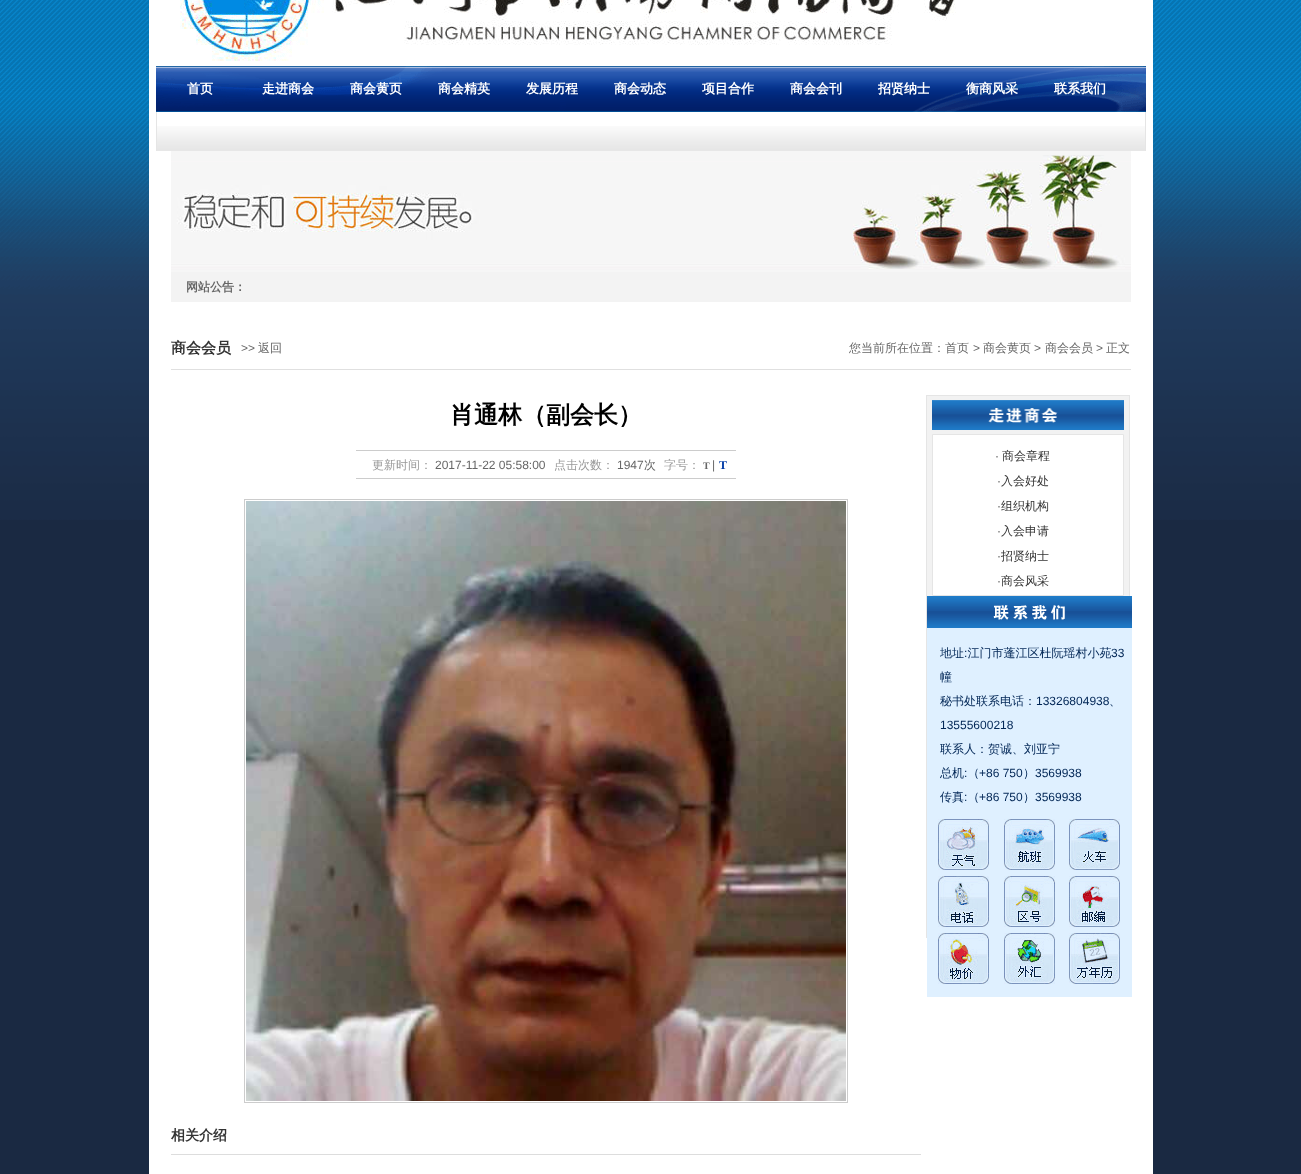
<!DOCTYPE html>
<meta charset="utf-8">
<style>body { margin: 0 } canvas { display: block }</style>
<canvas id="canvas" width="1301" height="1174"></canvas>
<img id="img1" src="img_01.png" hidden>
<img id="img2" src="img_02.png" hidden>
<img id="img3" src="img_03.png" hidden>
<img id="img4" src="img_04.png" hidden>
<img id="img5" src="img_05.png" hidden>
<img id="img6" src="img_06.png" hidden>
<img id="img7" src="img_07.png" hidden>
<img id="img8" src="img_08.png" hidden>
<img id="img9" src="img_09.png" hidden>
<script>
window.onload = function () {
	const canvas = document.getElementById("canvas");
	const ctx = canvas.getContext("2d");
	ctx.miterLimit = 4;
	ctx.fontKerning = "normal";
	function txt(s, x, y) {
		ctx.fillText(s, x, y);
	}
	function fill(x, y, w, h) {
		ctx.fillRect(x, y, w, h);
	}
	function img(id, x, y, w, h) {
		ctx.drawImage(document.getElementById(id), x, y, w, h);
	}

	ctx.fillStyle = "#1A2942";
	fill(0, 0, 1301, 1174);
	img("img1", 0, 0, 1301, 520);
	ctx.fillStyle = "#FFFFFF";
	fill(149, 0, 1004, 1174);
	img("img2", 180, 0, 776, 61);
	img("img3", 156, 66, 990, 46);
	img("img4", 157, 126, 988, 25);
	ctx.fillStyle = "#E5E5E5";
	fill(1145, 112, 1, 39);
	fill(156, 112, 1, 39);
	img("img5", 171, 151, 960, 121);
	ctx.fillStyle = "#F3F3F3";
	fill(171, 272, 960, 30);
	ctx.fillStyle = "#E0E0E0";
	fill(171, 369, 960, 1);
	ctx.fillStyle = "#CCCCCC";
	fill(356, 450, 380, 1);
	fill(356, 478, 380, 1);
	ctx.strokeStyle = "#CCCCCC";
	ctx.strokeRect(244.5, 499.5, 603, 603);
	img("img6", 246, 501, 600, 600);
	ctx.fillStyle = "#DDDDDD";
	fill(171, 1154, 750, 1);
	ctx.fillStyle = "#F2F2F2";
	fill(927, 396, 202, 200);
	ctx.strokeStyle = "#E5E5E5";
	ctx.strokeRect(926.5, 395.5, 203, 542);
	img("img7", 932, 400, 192, 30);
	ctx.fillStyle = "#FFFFFF";
	ctx.beginPath();
	ctx.rect(932.5, 434.5, 191, 161);
	ctx.fill();
	ctx.stroke();
	ctx.fillStyle = "#DFF0FF";
	fill(927, 628, 205, 191);
	img("img8", 927, 596, 205, 32);
	img("img9", 927, 819, 205, 178);
	ctx.font = "bold 13px WenQuanYi Zen Hei";
	ctx.fillStyle = "#FFFFFF";
	txt("首页", 187, 93);
	txt("走进商会", 262, 93);
	txt("商会黄页", 350, 93);
	txt("商会精英", 438, 93);
	txt("发展历程", 526, 93);
	txt("商会动态", 614, 93);
	txt("项目合作", 702, 93);
	txt("商会会刊", 790, 93);
	txt("招贤纳士", 878, 93);
	txt("衡商风采", 966, 93);
	txt("联系我们", 1054, 93);
	ctx.font = "bold 12px WenQuanYi Zen Hei";
	ctx.fillStyle = "#666666";
	txt("网站公告：", 186, 291);
	ctx.font = "bold 15px WenQuanYi Zen Hei";
	ctx.fillStyle = "#333333";
	txt("商会会员", 171, 353);
	ctx.font = "12px Liberation Sans";
	ctx.fillStyle = "#666666";
	txt(">>", 241, 352);
	ctx.font = "500 12px WenQuanYi Zen Hei";
	txt("返回", 258, 352);
	txt("您当前所在位置：首页", 849, 352);
	ctx.font = "12px Liberation Sans";
	txt(">", 973, 352);
	ctx.font = "500 12px WenQuanYi Zen Hei";
	txt("商会黄页", 983, 352);
	ctx.font = "12px Liberation Sans";
	txt(">", 1034, 352);
	ctx.font = "500 12px WenQuanYi Zen Hei";
	txt("商会会员", 1045, 352);
	ctx.font = "12px Liberation Sans";
	txt(">", 1096, 352);
	ctx.font = "500 12px WenQuanYi Zen Hei";
	txt("正文", 1106, 352);
	ctx.font = "bold 24px WenQuanYi Zen Hei";
	ctx.fillStyle = "#000000";
	txt("肖通林（副会长）", 450, 423);
	ctx.font = "500 12px WenQuanYi Zen Hei";
	ctx.fillStyle = "#999999";
	txt("更新时间：", 372, 469);
	ctx.font = "12px Liberation Sans";
	ctx.fillStyle = "#666666";
	txt("2017-11-22 05:58:00", 435, 469);
	ctx.font = "500 12px WenQuanYi Zen Hei";
	ctx.fillStyle = "#999999";
	txt("点击次数：", 554, 469);
	ctx.font = "12px Liberation Sans";
	ctx.fillStyle = "#666666";
	txt("1947", 617, 469);
	ctx.font = "500 12px WenQuanYi Zen Hei";
	txt("次", 644, 469);
	ctx.fillStyle = "#999999";
	txt("字号：", 664, 469);
	ctx.font = "bold 10px Liberation Serif";
	ctx.fillStyle = "#666666";
	txt("T", 703, 469);
	ctx.font = "12px Liberation Sans";
	txt("|", 712, 469);
	ctx.font = "bold 12px Liberation Serif";
	ctx.fillStyle = "#003BA6";
	txt("T", 719, 469);
	ctx.font = "bold 14px WenQuanYi Zen Hei";
	ctx.fillStyle = "#333333";
	txt("相关介绍", 171, 1140);
	ctx.font = "12px Liberation Sans";
	ctx.fillStyle = "#666666";
	txt("·", 995, 460);
	ctx.font = "500 12px WenQuanYi Zen Hei";
	ctx.fillStyle = "#333333";
	txt("商会章程", 1002, 460);
	ctx.font = "12px Liberation Sans";
	ctx.fillStyle = "#666666";
	txt("·", 997, 485);
	ctx.font = "500 12px WenQuanYi Zen Hei";
	ctx.fillStyle = "#333333";
	txt("入会好处", 1001, 485);
	ctx.font = "12px Liberation Sans";
	ctx.fillStyle = "#666666";
	txt("·", 997, 510);
	ctx.font = "500 12px WenQuanYi Zen Hei";
	ctx.fillStyle = "#333333";
	txt("组织机构", 1001, 510);
	ctx.font = "12px Liberation Sans";
	ctx.fillStyle = "#666666";
	txt("·", 997, 535);
	ctx.font = "500 12px WenQuanYi Zen Hei";
	ctx.fillStyle = "#333333";
	txt("入会申请", 1001, 535);
	ctx.font = "12px Liberation Sans";
	ctx.fillStyle = "#666666";
	txt("·", 997, 560);
	ctx.font = "500 12px WenQuanYi Zen Hei";
	ctx.fillStyle = "#333333";
	txt("招贤纳士", 1001, 560);
	ctx.font = "12px Liberation Sans";
	ctx.fillStyle = "#666666";
	txt("·", 997, 585);
	ctx.font = "500 12px WenQuanYi Zen Hei";
	ctx.fillStyle = "#333333";
	txt("商会风采", 1001, 585);
	ctx.fillStyle = "#002656";
	txt("地址 江门市蓬江区杜阮瑶村小苑", 940, 657);
	ctx.font = "12px Liberation Sans";
	txt("33", 1111, 657);
	txt(":", 964, 657);
	ctx.font = "500 12px WenQuanYi Zen Hei";
	txt("幢", 940, 681);
	txt("秘书处联系电话：", 940, 705);
	ctx.font = "12px Liberation Sans";
	txt("13326804938", 1036, 705);
	ctx.font = "500 12px WenQuanYi Zen Hei";
	txt("、", 1109, 705);
	ctx.font = "12px Liberation Sans";
	txt("13555600218", 940, 729);
	ctx.font = "500 12px WenQuanYi Zen Hei";
	txt("联系人：贺诚、刘亚宁", 940, 753);
	txt("总机 （", 940, 777);
	ctx.font = "12px Liberation Sans";
	txt("+86 750", 979, 777);
	ctx.font = "500 12px WenQuanYi Zen Hei";
	txt("）", 1023, 777);
	ctx.font = "12px Liberation Sans";
	txt("3569938", 1035, 777);
	txt(":", 964, 777);
	ctx.font = "500 12px WenQuanYi Zen Hei";
	txt("传真 （", 940, 801);
	ctx.font = "12px Liberation Sans";
	txt("+86 750", 979, 801);
	ctx.font = "500 12px WenQuanYi Zen Hei";
	txt("）", 1023, 801);
	ctx.font = "12px Liberation Sans";
	txt("3569938", 1035, 801);
	txt(":", 964, 801);
};
</script>
